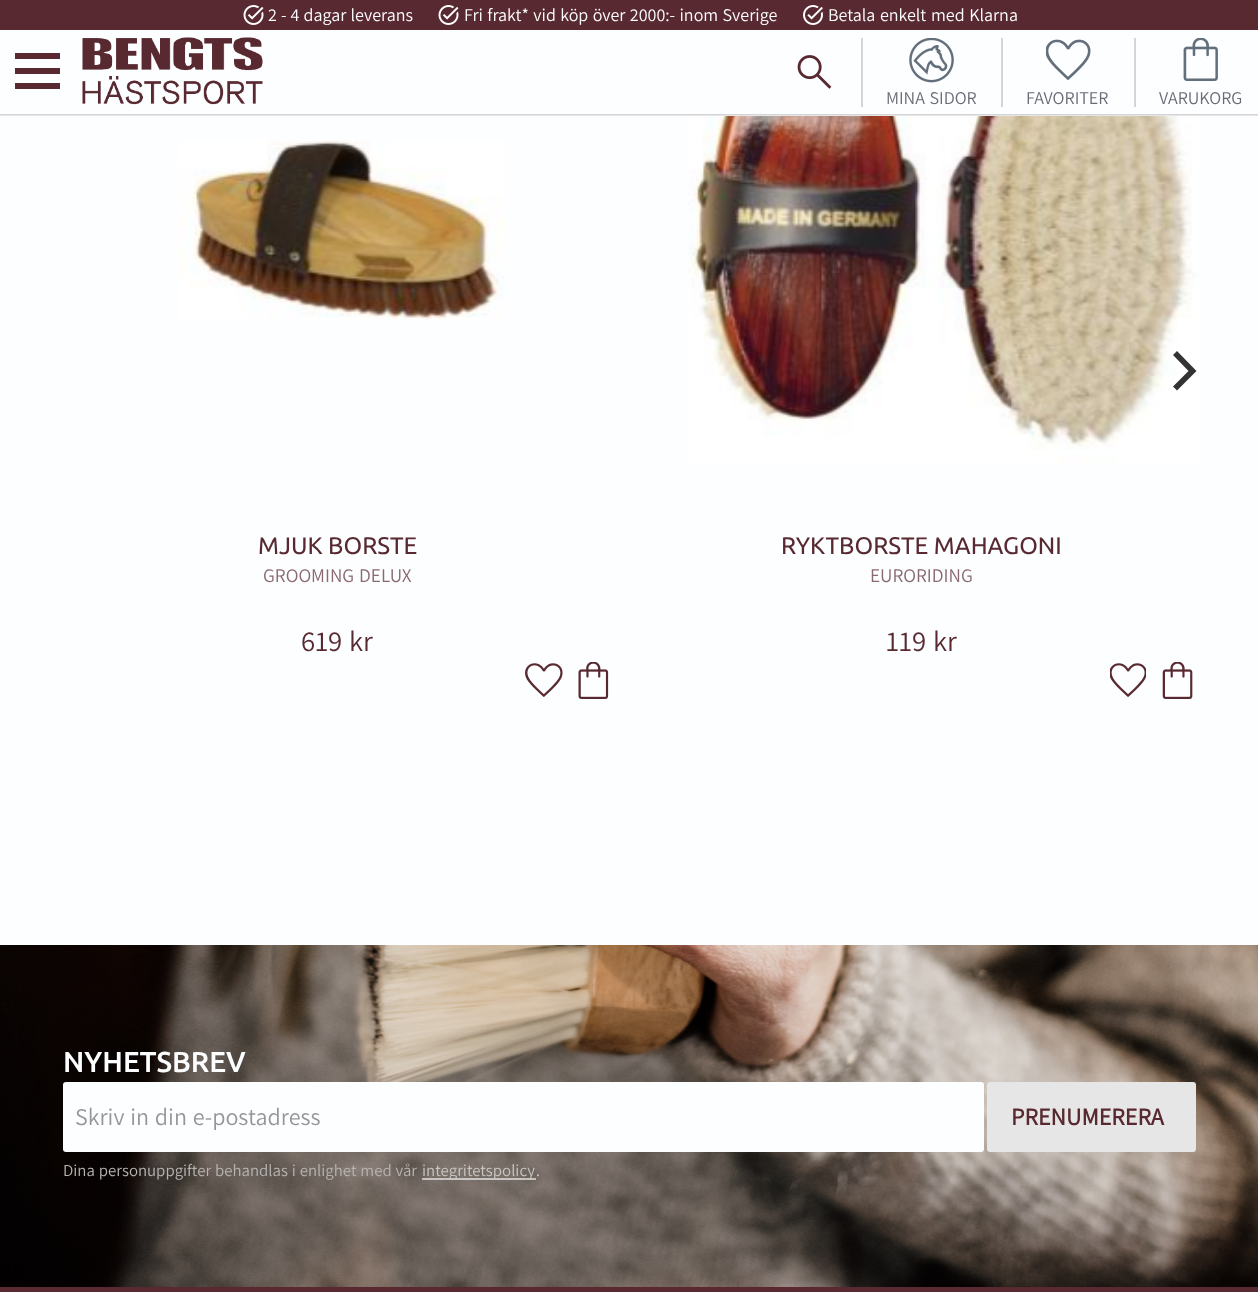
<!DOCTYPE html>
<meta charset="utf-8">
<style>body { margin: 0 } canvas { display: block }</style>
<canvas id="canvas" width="1258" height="1292"></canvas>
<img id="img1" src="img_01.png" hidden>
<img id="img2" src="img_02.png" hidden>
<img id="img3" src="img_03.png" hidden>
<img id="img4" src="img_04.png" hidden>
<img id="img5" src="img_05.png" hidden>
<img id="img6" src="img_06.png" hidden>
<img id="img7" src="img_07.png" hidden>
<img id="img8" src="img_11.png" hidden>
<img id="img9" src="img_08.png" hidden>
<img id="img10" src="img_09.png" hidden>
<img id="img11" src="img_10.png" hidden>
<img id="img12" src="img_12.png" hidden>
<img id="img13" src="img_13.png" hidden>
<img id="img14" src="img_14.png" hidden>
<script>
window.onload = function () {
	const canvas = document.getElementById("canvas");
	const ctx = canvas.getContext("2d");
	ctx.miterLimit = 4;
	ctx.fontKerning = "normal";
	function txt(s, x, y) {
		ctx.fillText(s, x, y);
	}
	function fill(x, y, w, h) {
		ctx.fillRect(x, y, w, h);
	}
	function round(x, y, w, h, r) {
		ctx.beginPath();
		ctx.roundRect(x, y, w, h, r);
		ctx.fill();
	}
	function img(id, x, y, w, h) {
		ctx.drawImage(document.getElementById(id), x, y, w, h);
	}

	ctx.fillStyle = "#FDFEFF";
	fill(0, 0, 1258, 1292);
	ctx.fillStyle = "#E6E6E6";
	fill(0, 115, 1258, 1);
	ctx.fillStyle = "#582931";
	fill(15, 68, 45, 6);
	fill(15, 53, 45, 6);
	fill(15, 83, 45, 6);
	fill(0, 0, 1258, 30);
	img("img1", 243, 5, 21, 20);
	img("img1", 438, 5, 21, 20);
	img("img2", 803, 5, 20, 20);
	img("img3", 82, 37, 181, 68);
	ctx.fillStyle = "#D5D5D8";
	fill(861, 38, 2, 69);
	img("img4", 797, 55, 35, 34);
	fill(1001, 38, 2, 69);
	img("img5", 909, 38, 45, 45);
	fill(1134, 38, 2, 69);
	img("img6", 1046, 39, 45, 42);
	img("img7", 1183, 38, 35, 43);
	fill(0, 114, 1258, 1);
	img("img8", 688, 116, 512, 348);
	ctx.fillStyle = "#333333";
	ctx.beginPath();
	ctx.moveTo(1196.5, 371);
	ctx.lineTo(1177, 351);
	ctx.lineTo(1173, 355);
	ctx.lineTo(1188.5, 371);
	ctx.lineTo(1173, 386.5);
	ctx.lineTo(1177, 390.5);
	ctx.closePath();
	ctx.fill();
	img("img9", 178, 140, 327, 180);
	img("img10", 525, 663, 38, 34);
	img("img11", 578, 662, 31, 37);
	img("img12", 1110, 663, 36, 34);
	img("img13", 1162, 662, 31, 37);
	ctx.fillStyle = "#582931";
	fill(0, 1287, 1258, 5);
	img("img14", 0, 945, 1258, 342);
	ctx.fillStyle = "#FDFEFF";
	round(63, 1082, 921, 70, 3);
	ctx.fillStyle = "#E6E6E6";
	round(987, 1082, 209, 70, 3);
	ctx.fillStyle = "rgba(253, 254, 255, 0.6)";
	fill(422, 1178, 114, 2);
	ctx.wordSpacing = "0.5px";
	ctx.font = "18px Assistant";
	ctx.fillStyle = "#FDFEFF";
	txt("2 - 4 dagar leverans", 268, 21);
	ctx.wordSpacing = "0.75px";
	txt("Fri frakt* vid köp över 2000:- inom Sverige", 464, 21);
	ctx.wordSpacing = "1px";
	txt("Betala enkelt med Klarna", 828, 21);
	ctx.fillStyle = "#6B6B76";
	txt("MINA SIDOR", 886, 104);
	ctx.wordSpacing = "0px";
	txt("FAVORITER", 1026, 104);
	txt("VARUKORG", 1159, 104);
	ctx.font = "24px Ubuntu";
	ctx.fillStyle = "#582931";
	txt("MJUK BORSTE", 258, 554);
	ctx.wordSpacing = "1px";
	ctx.font = "19.25px Assistant";
	ctx.fillStyle = "#8A696F";
	txt("GROOMING DELUX", 263, 582);
	ctx.wordSpacing = "0px";
	ctx.font = "28.75px Assistant";
	ctx.fillStyle = "#582931";
	txt("619", 301, 651);
	txt("kr", 349, 651);
	ctx.font = "24px Ubuntu";
	txt("RYKTBORSTE MAHAGONI", 781, 554);
	ctx.font = "19.25px Assistant";
	ctx.fillStyle = "#8A696F";
	txt("EURORIDING", 870, 582);
	ctx.font = "28.75px Assistant";
	ctx.fillStyle = "#582931";
	txt("119", 886, 651);
	txt("kr", 933, 651);
	ctx.font = "500 28.75px Ubuntu";
	ctx.fillStyle = "#FDFEFF";
	txt("NYHETSBREV", 63, 1072);
	ctx.wordSpacing = "1px";
	ctx.font = "24px Assistant";
	ctx.fillStyle = "#969696";
	txt("Skriv in din e-postadress", 75, 1125);
	ctx.wordSpacing = "0px";
	ctx.font = "bold 24px Assistant";
	ctx.fillStyle = "#582931";
	txt("PRENUMERERA", 1011, 1125);
	ctx.wordSpacing = "0.5px";
	ctx.font = "16.8px Assistant";
	ctx.fillStyle = "#B7B4B3";
	txt("Dina personuppgifter behandlas i enlighet med vår", 63, 1176);
	ctx.wordSpacing = "0px";
	ctx.fillStyle = "#C8C5C3";
	txt("integritetspolicy", 422, 1176);
	txt(".", 536, 1176);
};
</script>
